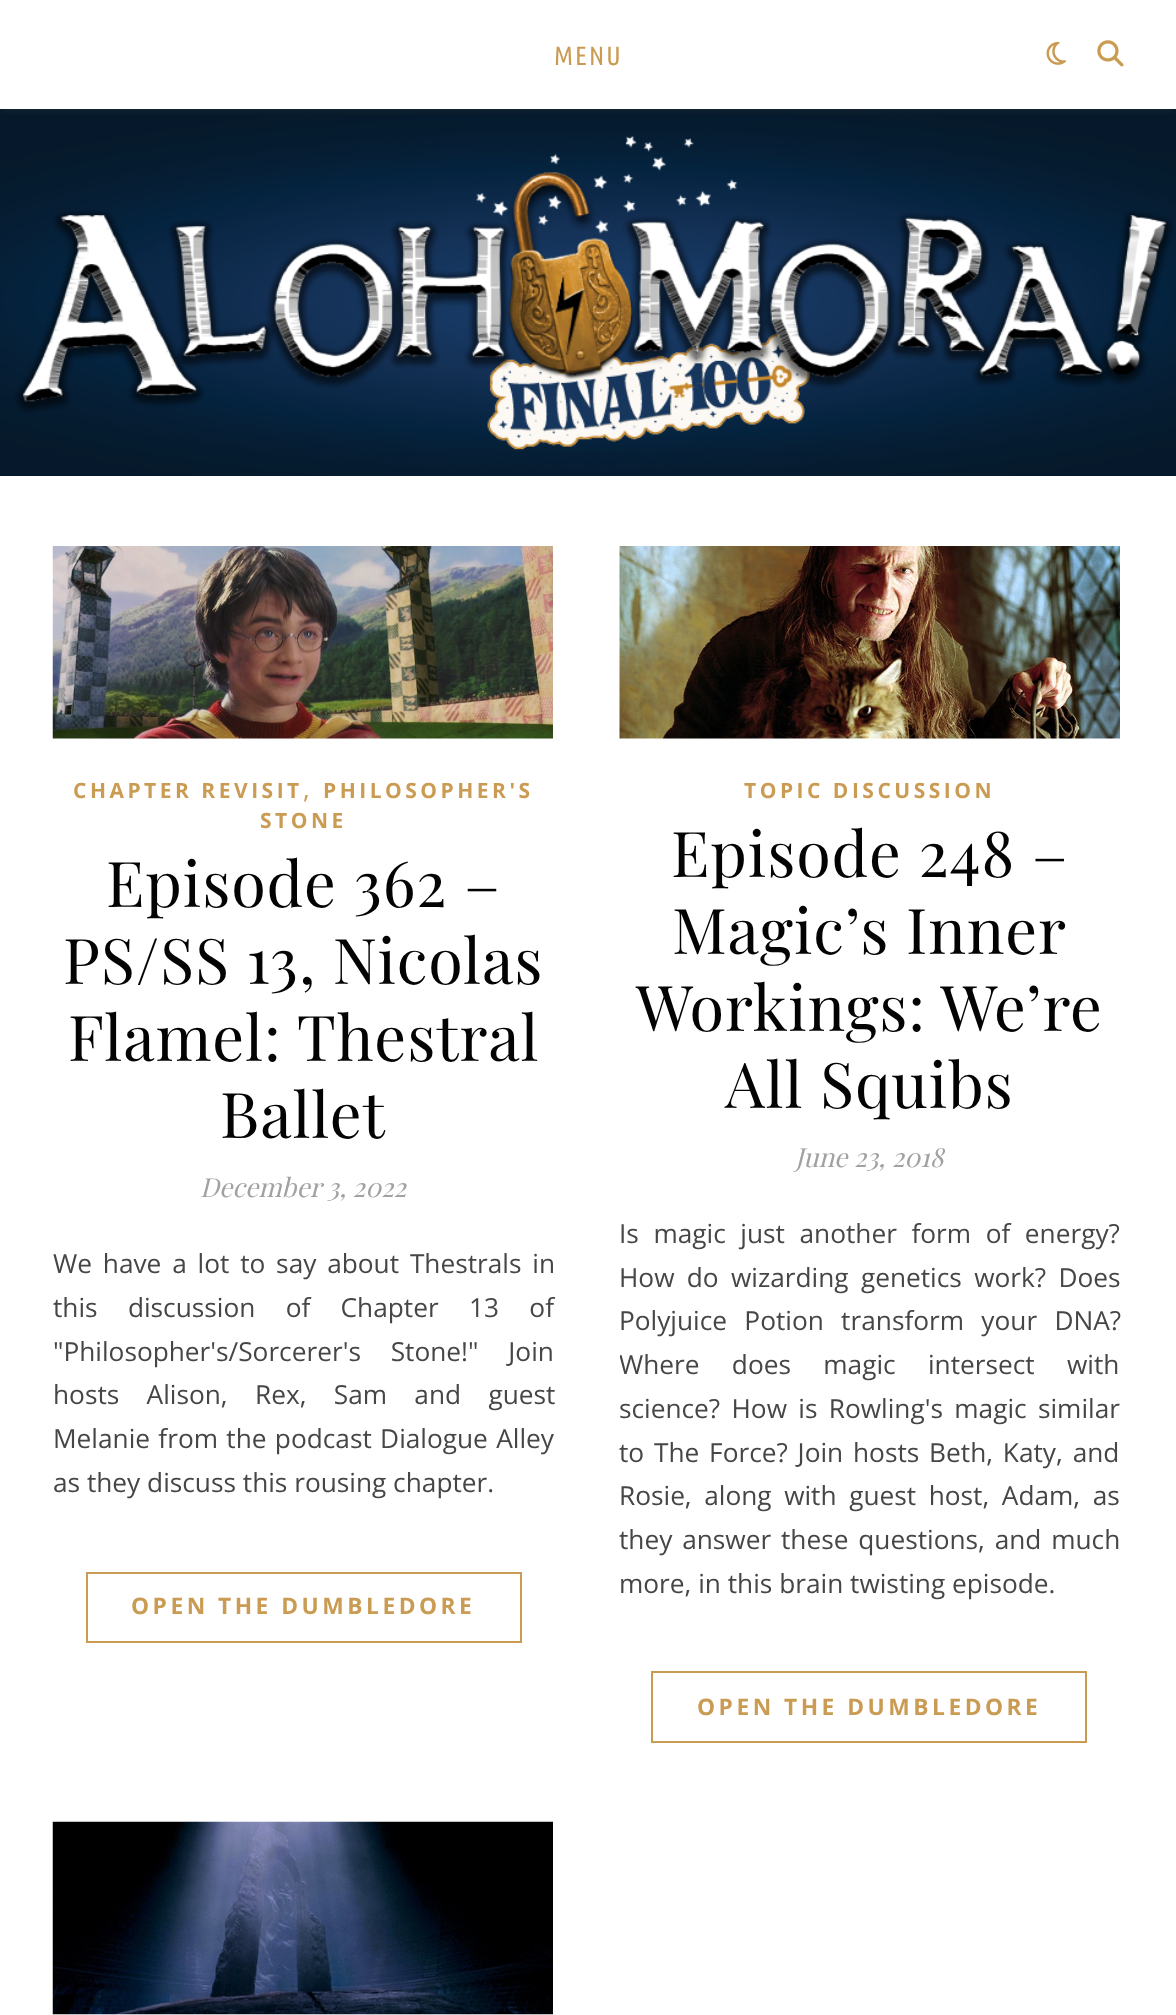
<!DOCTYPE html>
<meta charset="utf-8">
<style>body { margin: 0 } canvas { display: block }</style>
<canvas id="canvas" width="1176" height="2015"></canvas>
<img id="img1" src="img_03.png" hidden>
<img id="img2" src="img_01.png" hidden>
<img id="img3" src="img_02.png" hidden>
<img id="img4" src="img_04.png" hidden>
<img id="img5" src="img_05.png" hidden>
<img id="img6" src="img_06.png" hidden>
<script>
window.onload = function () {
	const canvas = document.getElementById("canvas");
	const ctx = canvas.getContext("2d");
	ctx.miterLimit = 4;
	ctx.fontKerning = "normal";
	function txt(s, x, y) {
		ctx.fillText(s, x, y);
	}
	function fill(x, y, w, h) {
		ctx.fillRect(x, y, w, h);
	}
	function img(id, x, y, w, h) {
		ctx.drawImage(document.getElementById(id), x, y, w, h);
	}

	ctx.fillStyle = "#FFFFFF";
	fill(0, 0, 1176, 2015);
	img("img1", 0, 109, 1176, 367);
	ctx.fillStyle = "rgba(202, 155, 82, 0.1)";
	ctx.filter = "blur(4.5px)";
	ctx.beginPath();
	ctx.rect(0, 2, 1176, 108);
	ctx.fill();
	ctx.filter = "none";
	ctx.fillStyle = "#FFFFFF";
	fill(0, 0, 1176, 109);
	img("img2", 1046, 41, 21, 24);
	img("img3", 1097, 40, 27, 27);
	img("img4", 52, 546, 501, 193);
	ctx.strokeStyle = "#CA9B52";
	ctx.lineWidth = 2;
	ctx.strokeRect(87, 1573, 434, 69);
	img("img5", 619, 546, 501, 193);
	ctx.strokeRect(652, 1672, 434, 70);
	img("img6", 52, 1821, 501, 194);
	ctx.letterSpacing = "2px";
	ctx.font = "26.25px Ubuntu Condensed";
	ctx.fillStyle = "#CA9B52";
	txt("MENU", 554, 65);
	ctx.letterSpacing = "3.5px";
	ctx.font = "bold 21px Open Sans";
	txt("CHAPTER REVISIT", 73, 798);
	ctx.letterSpacing = "0px";
	ctx.font = "26.25px Open Sans";
	txt(",", 303, 798);
	ctx.letterSpacing = "3.5px";
	ctx.font = "bold 21px Open Sans";
	txt("PHILOSOPHER'S", 323, 798);
	txt("STONE", 260, 828);
	ctx.letterSpacing = "0.9px";
	ctx.font = "63px Playfair Display";
	ctx.fillStyle = "#030303";
	txt("Episode 362 –", 106, 907);
	txt("PS/SS 13, Nicolas", 63, 984);
	txt("Flamel: Thestral", 68, 1061);
	txt("Ballet", 220, 1138);
	ctx.letterSpacing = "0px";
	ctx.font = "italic 26.25px Playfair Display";
	ctx.fillStyle = "#A1A1A1";
	txt("December 3, 2022", 200, 1197);
	ctx.wordSpacing = "4px";
	ctx.font = "26.25px Open Sans";
	ctx.fillStyle = "#464646";
	txt("We have a lot to say about Thestrals in", 53, 1273);
	ctx.wordSpacing = "23.5px";
	txt("this discussion of Chapter 13 of", 53, 1317);
	ctx.wordSpacing = "23px";
	txt("\"Philosopher's/Sorcerer's Stone!\" Join", 53, 1361);
	ctx.wordSpacing = "20.5px";
	txt("hosts Alison, Rex, Sam and guest", 53, 1404);
	ctx.wordSpacing = "1.5px";
	txt("Melanie from the podcast Dialogue Alley", 53, 1448);
	ctx.wordSpacing = "0px";
	txt("as they discuss this rousing chapter.", 53, 1492);
	ctx.letterSpacing = "3.5px";
	ctx.font = "bold 22.75px Open Sans";
	ctx.fillStyle = "#CA9B52";
	txt("OPEN THE DUMBLEDORE", 131, 1614);
	ctx.font = "bold 21px Open Sans";
	txt("TOPIC DISCUSSION", 744, 798);
	ctx.letterSpacing = "0.9px";
	ctx.font = "63px Playfair Display";
	ctx.fillStyle = "#030303";
	txt("Episode 248 –", 671, 877);
	txt("Magic’s Inner", 672, 954);
	txt("Workings: We’re", 636, 1031);
	txt("All Squibs", 725, 1108);
	ctx.letterSpacing = "0px";
	ctx.font = "italic 26.25px Playfair Display";
	ctx.fillStyle = "#A1A1A1";
	txt("June 23, 2018", 795, 1167);
	ctx.wordSpacing = "7.75px";
	ctx.font = "26.25px Open Sans";
	ctx.fillStyle = "#464646";
	txt("Is magic just another form of energy?", 619, 1243);
	ctx.wordSpacing = "5.5px";
	txt("How do wizarding genetics work? Does", 619, 1287);
	ctx.wordSpacing = "10.5px";
	txt("Polyjuice Potion transform your DNA?", 619, 1330);
	ctx.save();
	ctx.beginPath();
	ctx.rect(620, 1211, 500, 417);
	ctx.clip();
	ctx.wordSpacing = "25.5px";
	txt("Where does magic intersect with", 619, 1374);
	ctx.restore();
	ctx.wordSpacing = "4.5px";
	txt("science? How is Rowling's magic similar", 619, 1418);
	ctx.wordSpacing = "3px";
	txt("to The Force? Join hosts Beth, Katy, and", 619, 1462);
	ctx.wordSpacing = "5.75px";
	txt("Rosie, along with guest host, Adam, as", 619, 1505);
	ctx.wordSpacing = "3px";
	txt("they answer these questions, and much", 619, 1549);
	ctx.wordSpacing = "0px";
	txt("more, in this brain twisting episode.", 619, 1593);
	ctx.letterSpacing = "3.5px";
	ctx.font = "bold 22.75px Open Sans";
	ctx.fillStyle = "#CA9B52";
	txt("OPEN THE DUMBLEDORE", 697, 1715);
};
</script>
